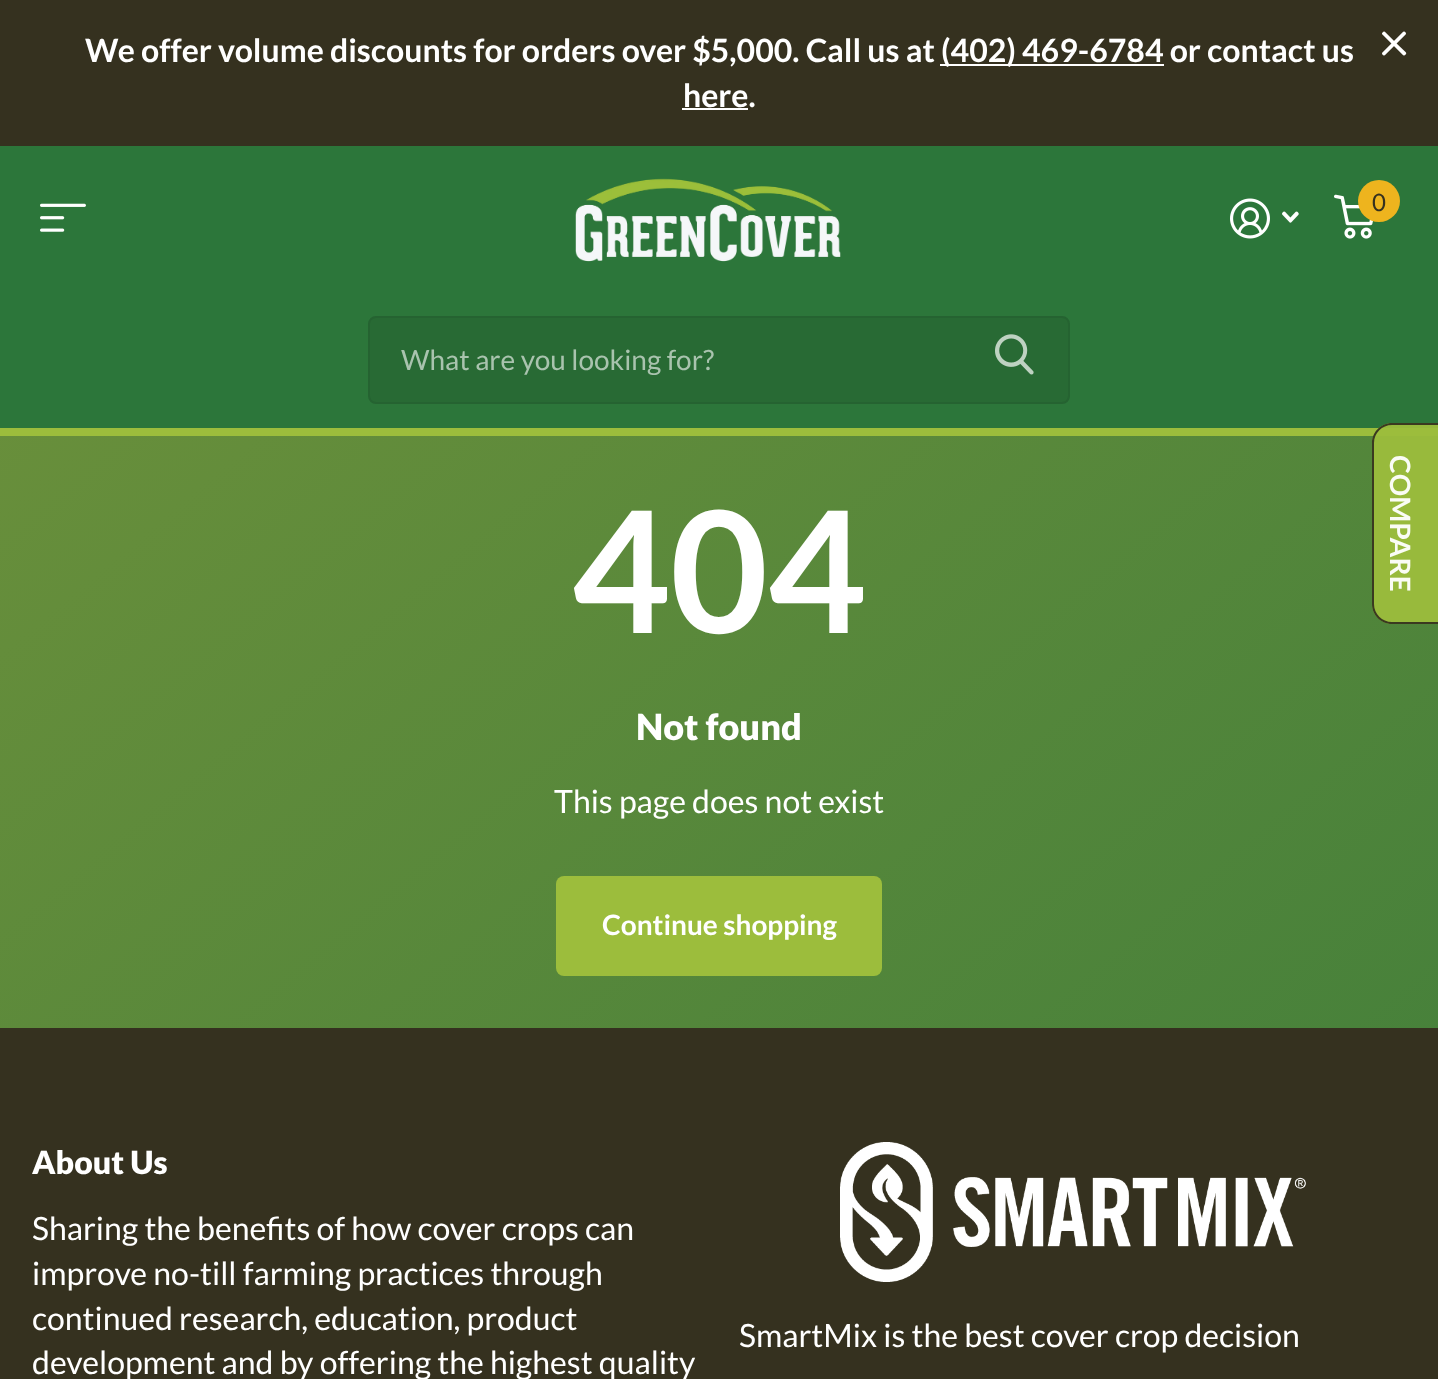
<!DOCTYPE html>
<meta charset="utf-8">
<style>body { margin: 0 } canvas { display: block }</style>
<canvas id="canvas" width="1438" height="1379"></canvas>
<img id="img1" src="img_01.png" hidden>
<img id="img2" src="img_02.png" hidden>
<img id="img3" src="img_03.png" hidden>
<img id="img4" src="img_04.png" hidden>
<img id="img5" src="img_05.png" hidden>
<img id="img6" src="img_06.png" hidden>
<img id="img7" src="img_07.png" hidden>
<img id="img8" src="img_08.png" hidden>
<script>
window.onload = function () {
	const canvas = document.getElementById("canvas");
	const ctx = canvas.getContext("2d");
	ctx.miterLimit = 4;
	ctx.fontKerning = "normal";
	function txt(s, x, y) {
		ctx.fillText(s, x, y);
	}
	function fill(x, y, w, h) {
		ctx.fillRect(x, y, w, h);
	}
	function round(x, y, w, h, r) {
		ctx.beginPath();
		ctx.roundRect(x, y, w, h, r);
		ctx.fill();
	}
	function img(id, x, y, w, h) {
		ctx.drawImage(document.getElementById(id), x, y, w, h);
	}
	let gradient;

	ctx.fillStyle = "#FFFFFF";
	fill(0, 0, 1438, 1379);
	ctx.fillStyle = "#35311F";
	fill(0, 0, 1438, 146);
	ctx.fillStyle = "#FFFFFF";
	fill(940, 64, 224, 2);
	fill(682, 108, 66, 2);
	img("img1", 1382, 31, 25, 25);
	ctx.fillStyle = "#2C763A";
	fill(0, 146, 1438, 282);
	ctx.fillStyle = "#9CBD3C";
	fill(0, 428, 1438, 8);
	img("img2", 40, 203, 46, 29);
	img("img3", 575, 178, 266, 84);
	img("img4", 1230, 198, 40, 41);
	img("img5", 1282, 211, 17, 12);
	img("img6", 1334, 194, 39, 45);
	ctx.fillStyle = "#EEB41E";
	ctx.beginPath();
	ctx.arc(1379, 201, 21, 0, Math.PI * 2);
	ctx.fill();
	ctx.fillStyle = "#286A34";
	ctx.beginPath();
	ctx.roundRect(369, 317, 700, 86, 7);
	ctx.fill();
	ctx.strokeStyle = "#256331";
	ctx.lineWidth = 2;
	ctx.stroke();
	img("img7", 995, 334, 39, 41);
	gradient = ctx.createLinearGradient(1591, 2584, -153, 504);
	gradient.addColorStop(0.04, "#2C763A");
	gradient.addColorStop(1, "#698F3B");
	ctx.fillStyle = gradient;
	fill(0, 436, 1438, 592);
	ctx.fillStyle = "#9CBD3C";
	round(556, 876, 326, 100, 8);
	ctx.fillStyle = "#35311F";
	fill(0, 1028, 1438, 351);
	img("img8", 840, 1142, 466, 140);
	ctx.fillStyle = "rgba(156, 189, 60, 0.95)";
	ctx.beginPath();
	ctx.moveTo(1438, 423);
	ctx.lineTo(1438, 624);
	ctx.lineTo(1392, 624);
	ctx.bezierCurveTo(1381, 624, 1372, 615, 1372, 604);
	ctx.lineTo(1372, 443);
	ctx.bezierCurveTo(1372, 432, 1381, 423, 1392, 423);
	ctx.closePath();
	ctx.fill();
	ctx.fillStyle = "rgba(53, 49, 31, 0.95)";
	ctx.beginPath();
	ctx.moveTo(1438, 423);
	ctx.lineTo(1438, 624);
	ctx.lineTo(1392, 624);
	ctx.bezierCurveTo(1381, 624, 1372, 615, 1372, 604);
	ctx.lineTo(1372, 443);
	ctx.bezierCurveTo(1372, 432, 1381, 423, 1392, 423);
	ctx.closePath();
	ctx.moveTo(1438, 425);
	ctx.lineTo(1438, 622);
	ctx.lineTo(1392, 622);
	ctx.bezierCurveTo(1382, 622, 1374, 614, 1374, 604);
	ctx.lineTo(1374, 443);
	ctx.bezierCurveTo(1374, 433, 1382, 425, 1392, 425);
	ctx.closePath();
	ctx.fill("evenodd");
	ctx.font = "bold 32px Lato";
	ctx.fillStyle = "#FFFFFF";
	txt("We offer volume discounts for orders over $5,000. Call us at", 85, 62);
	txt("(402) 469-6784 or contact us", 941, 62);
	txt("here.", 683, 107);
	ctx.font = "24px Lato";
	ctx.fillStyle = "#35311F";
	txt("0", 1372, 211);
	ctx.font = "28px Lato";
	ctx.fillStyle = "#A9C3AE";
	txt("What are you looking for?", 401, 370);
	ctx.font = "bold 169px Lato";
	ctx.fillStyle = "#FFFFFF";
	txt("404", 572, 633);
	ctx.font = "900 36px Lato";
	txt("Not found", 636, 740);
	ctx.font = "32px Lato";
	txt("This page does not exist", 554, 813);
	ctx.font = "bold 28px Lato";
	txt("Continue shopping", 602, 935);
	ctx.font = "900 32px Lato";
	txt("About Us", 32, 1174);
	ctx.font = "32px Lato";
	txt("Sharing the benefits of how cover crops can", 32, 1240);
	txt("improve no-till farming practices through", 32, 1285);
	txt("continued research, education, product", 32, 1330);
	txt("development and by offering the highest quality", 32, 1374);
	txt("SmartMix is the best cover crop decision", 739, 1347);
	ctx.font = "bold 28px Lato";
	ctx.fillStyle = "#FAFCF5";
	ctx.save();
	ctx.translate(1390, 455);
	ctx.rotate(90 * Math.PI / 180);
	ctx.fillText("COMPARE", 0, 0);
	ctx.restore();
};
</script>
